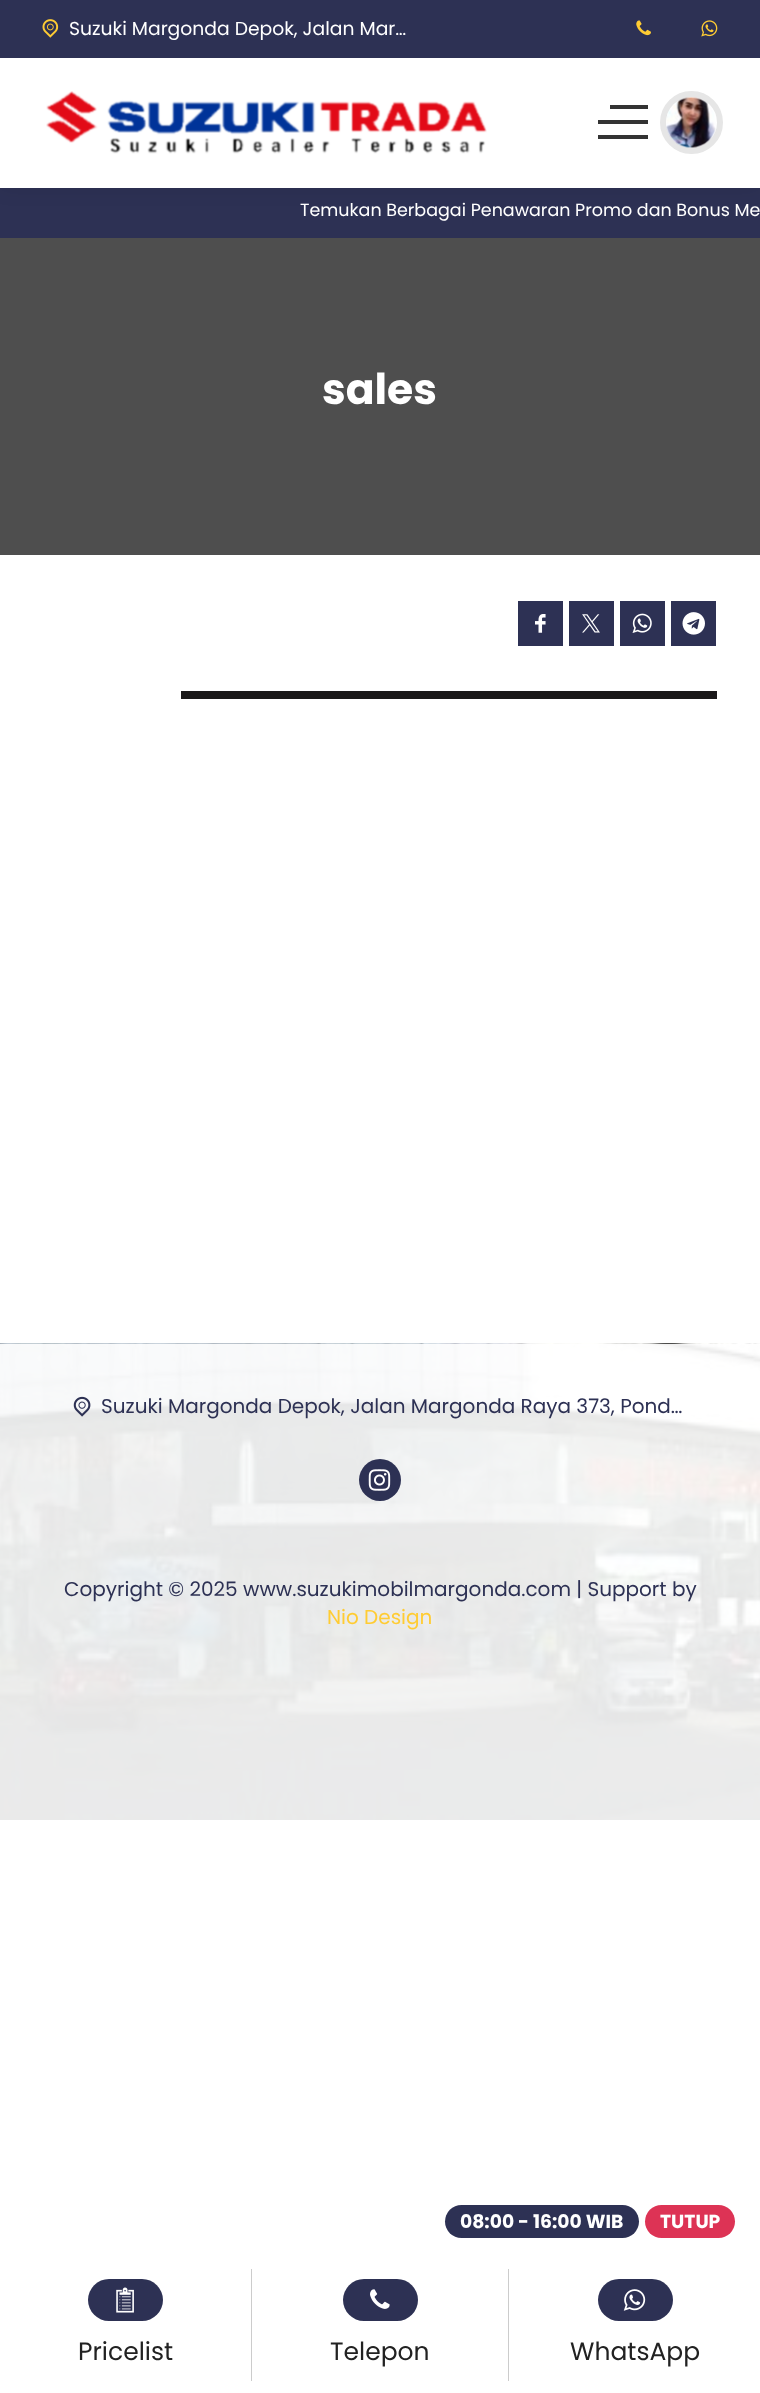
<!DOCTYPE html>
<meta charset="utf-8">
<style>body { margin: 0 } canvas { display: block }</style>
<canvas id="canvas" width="760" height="2393"></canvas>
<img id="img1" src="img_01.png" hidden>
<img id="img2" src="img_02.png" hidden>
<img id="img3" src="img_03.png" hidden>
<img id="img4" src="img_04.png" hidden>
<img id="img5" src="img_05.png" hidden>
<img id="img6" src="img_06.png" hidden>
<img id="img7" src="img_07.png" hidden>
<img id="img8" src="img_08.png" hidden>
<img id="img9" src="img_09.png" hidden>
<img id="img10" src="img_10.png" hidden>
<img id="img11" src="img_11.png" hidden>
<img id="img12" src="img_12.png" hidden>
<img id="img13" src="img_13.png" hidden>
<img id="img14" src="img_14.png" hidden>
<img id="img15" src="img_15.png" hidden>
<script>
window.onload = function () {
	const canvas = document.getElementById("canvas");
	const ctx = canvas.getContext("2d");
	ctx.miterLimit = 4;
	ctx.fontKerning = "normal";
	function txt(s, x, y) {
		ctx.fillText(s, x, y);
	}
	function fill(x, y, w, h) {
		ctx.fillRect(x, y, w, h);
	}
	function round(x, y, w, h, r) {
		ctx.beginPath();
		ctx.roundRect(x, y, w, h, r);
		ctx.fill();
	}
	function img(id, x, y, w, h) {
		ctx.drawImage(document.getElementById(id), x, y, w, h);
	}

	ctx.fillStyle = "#FFFFFF";
	fill(0, 0, 760, 2393);
	ctx.fillStyle = "#2D3154";
	fill(0, 188, 760, 50);
	ctx.fillStyle = "rgba(0, 0, 0, 0.09)";
	ctx.filter = "blur(9.5px)";
	ctx.beginPath();
	ctx.rect(0, 0, 760, 188);
	ctx.fill();
	ctx.filter = "none";
	ctx.fillStyle = "#FFFFFF";
	fill(0, 58, 760, 130);
	ctx.fillStyle = "#2D3154";
	fill(0, 0, 760, 58);
	img("img1", 42, 19, 17, 19);
	img("img2", 636, 20, 15, 16);
	img("img3", 701, 20, 17, 17);
	round(445, 2205, 194, 33, 16.5);
	ctx.fillStyle = "#DD3355";
	round(645, 2205, 90, 33, 16.5);
	img("img4", 46, 91, 441, 63);
	ctx.fillStyle = "#333333";
	fill(610, 105, 38, 4);
	fill(598, 120, 50, 4);
	fill(598, 135, 50, 4);
	ctx.beginPath();
	ctx.arc(691.5, 122.5, 28.5, 0, Math.PI * 2);
	ctx.strokeStyle = "#E6E6E6";
	ctx.lineWidth = 6;
	ctx.stroke();
	img("img5", 666, 97, 50, 51);
	ctx.fillStyle = "#4E4E4E";
	fill(0, 238, 760, 317);
	ctx.fillStyle = "#2D3154";
	fill(518, 601, 45, 45);
	img("img6", 535, 614, 11, 19);
	fill(569, 601, 45, 45);
	img("img7", 582, 614, 18, 19);
	fill(620, 601, 45, 45);
	img("img8", 632, 613, 20, 20);
	fill(671, 601, 45, 45);
	img("img9", 682, 612, 23, 23);
	ctx.fillStyle = "#1A1819";
	fill(181, 691, 536, 8);
	img("img10", 0, 1343, 760, 477);
	img("img11", 73, 1396, 18, 21);
	ctx.fillStyle = "#2D3154";
	ctx.beginPath();
	ctx.arc(380, 1480, 21, 0, Math.PI * 2);
	ctx.fill();
	img("img12", 368, 1469, 23, 22);
	ctx.fillStyle = "#CCCCCC";
	fill(251, 2269, 1, 112);
	ctx.fillStyle = "#2D3154";
	round(343, 2279, 75, 42, 21);
	img("img13", 370, 2289, 20, 20);
	ctx.fillStyle = "#CCCCCC";
	fill(508, 2269, 1, 112);
	ctx.fillStyle = "#2D3154";
	round(598, 2279, 75, 42, 21);
	img("img14", 623, 2289, 23, 22);
	round(88, 2279, 75, 42, 21);
	img("img15", 116, 2287, 18, 26);
	ctx.font = "18.75px Poppins";
	ctx.fillStyle = "#FFFFFF";
	txt("Suzuki Margonda Depok, Jalan Mar…", 69, 35);
	ctx.font = "bold 18.75px Poppins";
	txt("08:00 - 16:00 WIB", 460, 2228);
	txt("TUTUP", 660, 2228);
	ctx.font = "17.5px Poppins";
	txt("Temukan Berbagai Penawaran Promo dan Bonus Me", 300, 216);
	ctx.font = "bold 42.5px Poppins";
	txt("sales", 322, 404);
	ctx.font = "20px Poppins";
	ctx.fillStyle = "#2D3154";
	txt("Suzuki Margonda Depok, Jalan Margonda Raya 373, Pond…", 101, 1413);
	ctx.font = "25px Poppins";
	ctx.fillStyle = "#222222";
	txt("Telepon", 330, 2360);
	txt("WhatsApp", 570, 2360);
	ctx.font = "20px Poppins";
	ctx.fillStyle = "#2D3154";
	txt("Copyright © 2025 www.suzukimobilmargonda.com | Support by", 64, 1596);
	ctx.fillStyle = "#FFCC33";
	txt("Nio Design", 327, 1624);
	ctx.font = "25px Poppins";
	ctx.fillStyle = "#222222";
	txt("Pricelist", 78, 2360);
};
</script>
